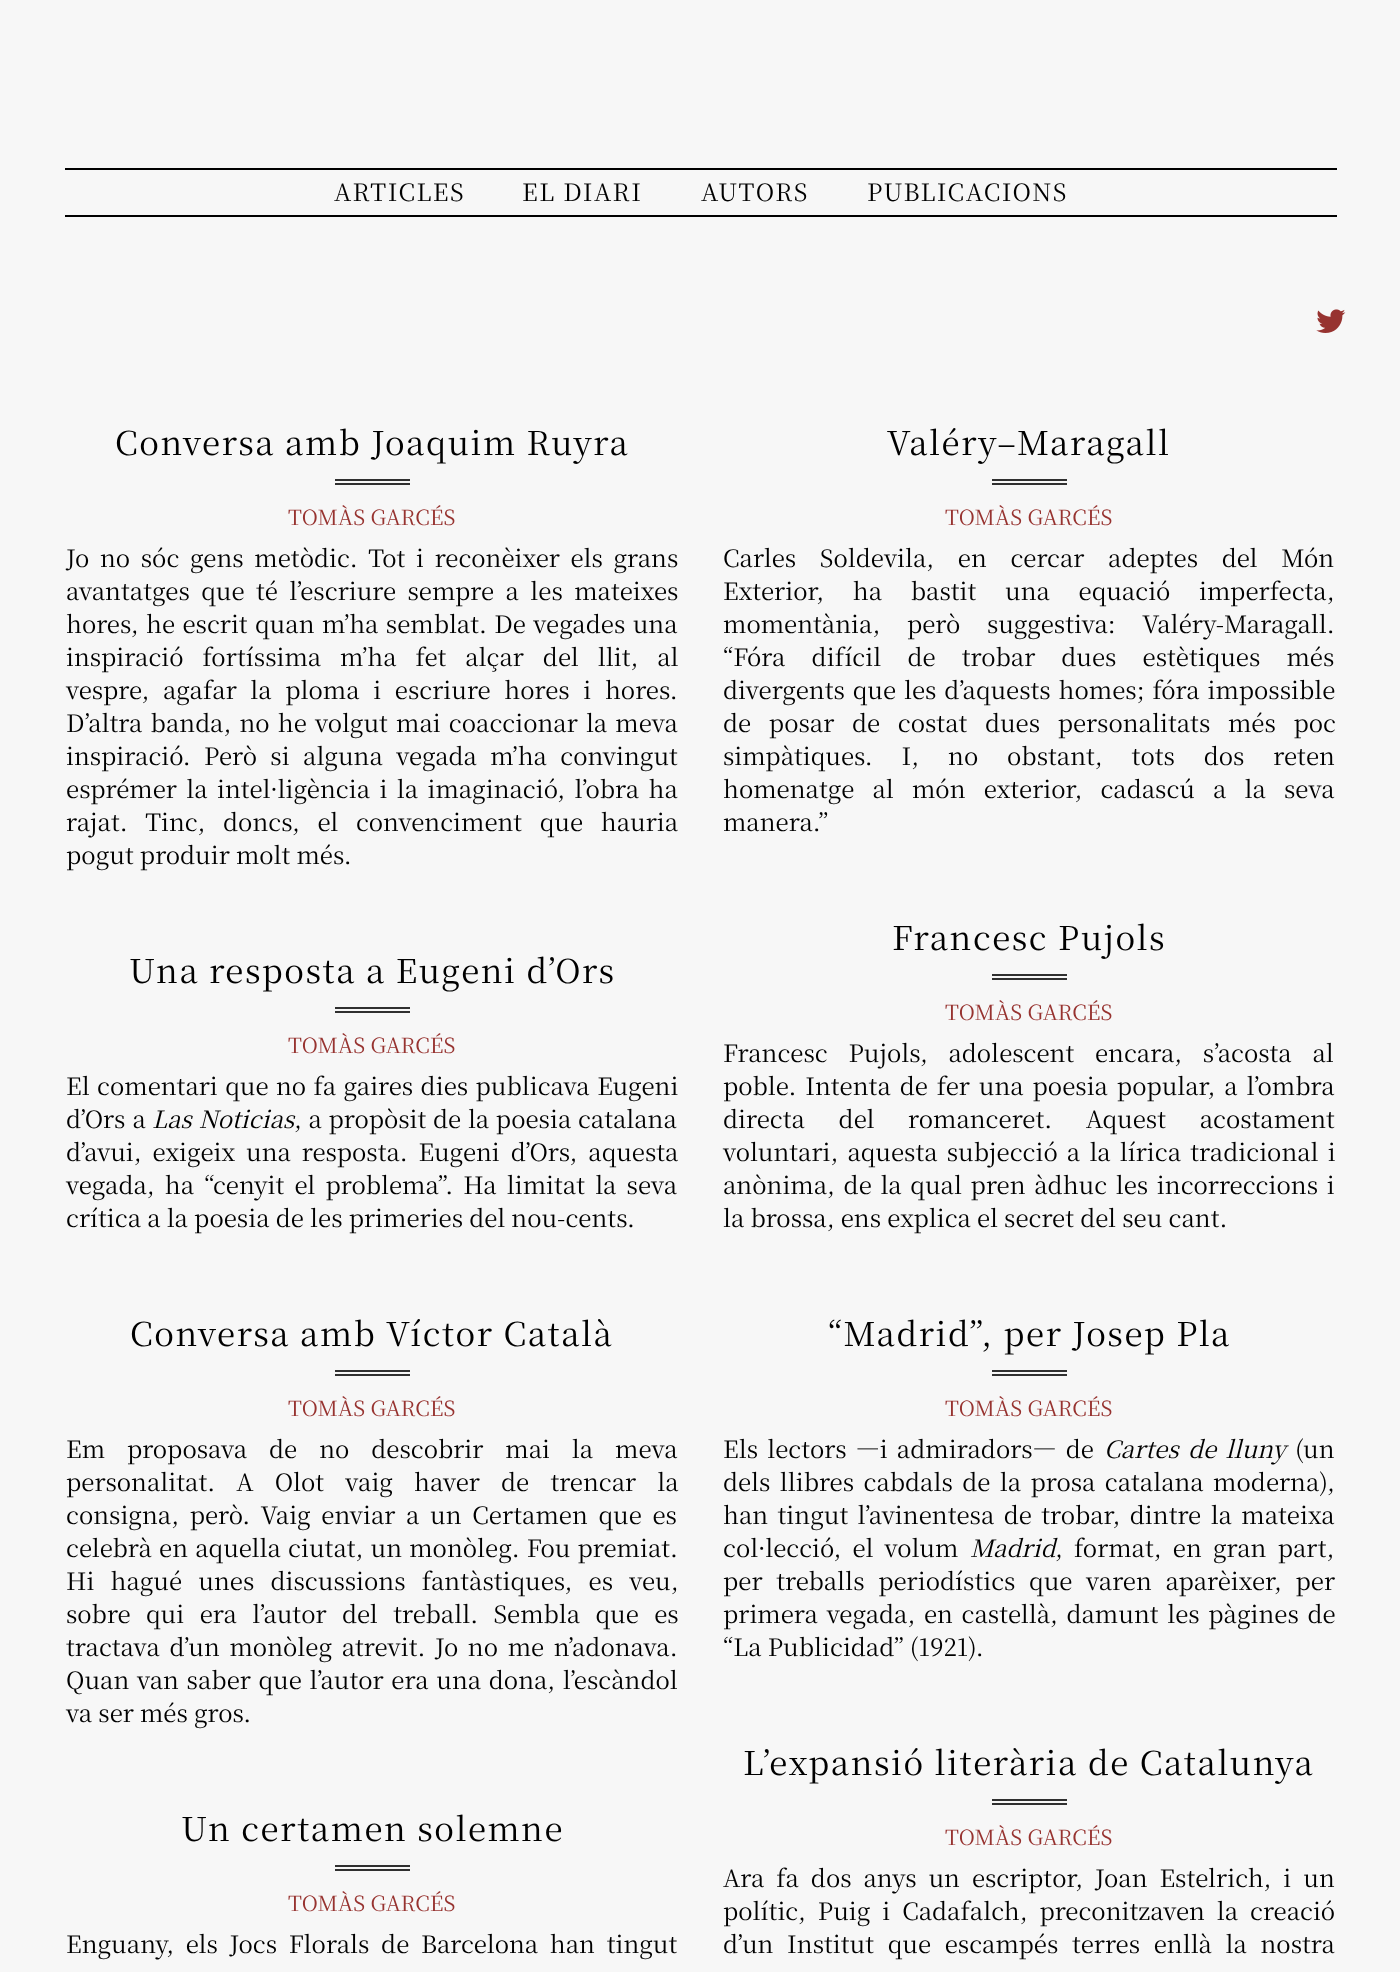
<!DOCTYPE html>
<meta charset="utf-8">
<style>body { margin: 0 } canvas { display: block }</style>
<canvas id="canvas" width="1400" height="1972"></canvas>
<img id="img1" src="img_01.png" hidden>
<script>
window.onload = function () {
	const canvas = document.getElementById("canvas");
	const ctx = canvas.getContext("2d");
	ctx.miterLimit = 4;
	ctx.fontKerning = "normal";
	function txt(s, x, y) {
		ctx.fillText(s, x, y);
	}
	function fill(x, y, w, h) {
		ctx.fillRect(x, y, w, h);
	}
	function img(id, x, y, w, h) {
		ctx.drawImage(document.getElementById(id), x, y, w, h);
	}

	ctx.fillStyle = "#F7F7F7";
	fill(0, 0, 1400, 1972);
	ctx.fillStyle = "#000000";
	fill(65, 168, 1272, 2);
	fill(65, 215, 1272, 2);
	img("img1", 1316, 309, 30, 24);
	ctx.fillStyle = "#303030";
	fill(335, 479, 75, 2);
	fill(335, 483, 75, 2);
	fill(992, 479, 75, 2);
	fill(992, 483, 75, 2);
	fill(335, 1007, 75, 2);
	fill(335, 1011, 75, 2);
	fill(992, 974, 75, 2);
	fill(992, 978, 75, 2);
	fill(335, 1370, 75, 2);
	fill(335, 1374, 75, 2);
	fill(992, 1370, 75, 2);
	fill(992, 1374, 75, 2);
	fill(335, 1865, 75, 2);
	fill(335, 1869, 75, 2);
	fill(992, 1799, 75, 2);
	fill(992, 1803, 75, 2);
	ctx.letterSpacing = "1.5px";
	ctx.font = "24px Noto Serif KR";
	ctx.fillStyle = "#000000";
	txt("ARTICLES", 334, 201);
	txt("EL DIARI", 522, 201);
	txt("AUTORS", 701, 201);
	txt("PUBLICACIONS", 867, 201);
	ctx.font = "33px Noto Serif KR";
	txt("Conversa amb Joaquim Ruyra", 115, 455);
	ctx.letterSpacing = "0px";
	ctx.font = "21px Noto Serif KR";
	ctx.fillStyle = "#973330";
	txt("TOMÀS GARCÉS", 288, 525);
	ctx.wordSpacing = "4.5px";
	ctx.font = "24px Noto Serif KR";
	ctx.fillStyle = "#000000";
	txt("Jo no sóc gens metòdic. Tot i reconèixer els grans", 66, 567);
	ctx.wordSpacing = "5.25px";
	txt("avantatges que té l’escriure sempre a les mateixes", 66, 600);
	ctx.wordSpacing = "1.25px";
	txt("hores, he escrit quan m’ha semblat. De vegades una", 66, 633);
	ctx.wordSpacing = "12.75px";
	txt("inspiració fortíssima m’ha fet alçar del llit, al", 66, 666);
	ctx.wordSpacing = "7.5px";
	txt("vespre, agafar la ploma i escriure hores i hores.", 66, 699);
	ctx.wordSpacing = "2px";
	txt("D’altra banda, no he volgut mai coaccionar la meva", 66, 732);
	ctx.wordSpacing = "7.25px";
	txt("inspiració. Però si alguna vegada m’ha convingut", 66, 765);
	ctx.wordSpacing = "3.25px";
	txt("esprémer la intel·ligència i la imaginació, l’obra ha", 66, 798);
	ctx.wordSpacing = "11.5px";
	txt("rajat. Tinc, doncs, el convenciment que hauria", 66, 831);
	ctx.wordSpacing = "0px";
	txt("pogut produir molt més.", 66, 864);
	ctx.letterSpacing = "1.5px";
	ctx.font = "33px Noto Serif KR";
	txt("Valéry–Maragall", 887, 455);
	ctx.letterSpacing = "0px";
	ctx.font = "21px Noto Serif KR";
	ctx.fillStyle = "#973330";
	txt("TOMÀS GARCÉS", 945, 525);
	ctx.wordSpacing = "17.5px";
	ctx.font = "24px Noto Serif KR";
	ctx.fillStyle = "#000000";
	txt("Carles Soldevila, en cercar adeptes del Món", 723, 567);
	ctx.wordSpacing = "22.5px";
	txt("Exterior, ha bastit una equació imperfecta,", 723, 600);
	ctx.wordSpacing = "20.5px";
	txt("momentània, però suggestiva: Valéry-Maragall.", 723, 633);
	ctx.wordSpacing = "20px";
	txt("“Fóra difícil de trobar dues estètiques més", 723, 666);
	ctx.wordSpacing = "1.75px";
	txt("divergents que les d’aquests homes; fóra impossible", 723, 699);
	ctx.wordSpacing = "11.5px";
	txt("de posar de costat dues personalitats més poc", 723, 732);
	ctx.wordSpacing = "22.75px";
	txt("simpàtiques. I, no obstant, tots dos reten", 723, 765);
	ctx.wordSpacing = "12px";
	txt("homenatge al món exterior, cadascú a la seva", 723, 798);
	ctx.wordSpacing = "0px";
	txt("manera.”", 723, 831);
	ctx.letterSpacing = "1.5px";
	ctx.font = "33px Noto Serif KR";
	txt("Una resposta a Eugeni d’Ors", 129, 983);
	ctx.letterSpacing = "0px";
	ctx.font = "21px Noto Serif KR";
	ctx.fillStyle = "#973330";
	txt("TOMÀS GARCÉS", 288, 1053);
	ctx.wordSpacing = "1.25px";
	ctx.font = "24px Noto Serif KR";
	ctx.fillStyle = "#000000";
	txt("El comentari que no fa gaires dies publicava Eugeni", 66, 1095);
	ctx.wordSpacing = "1px";
	txt("d’Ors a", 66, 1128);
	ctx.font = "italic 24px Noto Serif KR";
	txt("Las Noticias", 152, 1128);
	ctx.wordSpacing = "0.5px";
	ctx.font = "24px Noto Serif KR";
	txt(", a propòsit de la poesia catalana", 294, 1128);
	ctx.wordSpacing = "4.75px";
	txt("d’avui, exigeix una resposta. Eugeni d’Ors, aquesta", 66, 1161);
	ctx.wordSpacing = "4px";
	txt("vegada, ha “cenyit el problema”. Ha limitat la seva", 66, 1194);
	ctx.wordSpacing = "0px";
	txt("crítica a la poesia de les primeries del nou-cents.", 66, 1227);
	ctx.letterSpacing = "1.5px";
	ctx.font = "33px Noto Serif KR";
	txt("Francesc Pujols", 892, 950);
	ctx.letterSpacing = "0px";
	ctx.font = "21px Noto Serif KR";
	ctx.fillStyle = "#973330";
	txt("TOMÀS GARCÉS", 945, 1020);
	ctx.wordSpacing = "14.5px";
	ctx.font = "24px Noto Serif KR";
	ctx.fillStyle = "#000000";
	txt("Francesc Pujols, adolescent encara, s’acosta al", 723, 1062);
	ctx.wordSpacing = "2.75px";
	txt("poble. Intenta de fer una poesia popular, a l’ombra", 723, 1095);
	ctx.wordSpacing = "27.5px";
	txt("directa del romanceret. Aquest acostament", 723, 1128);
	ctx.wordSpacing = "3px";
	txt("voluntari, aquesta subjecció a la lírica tradicional i", 723, 1161);
	ctx.wordSpacing = "2.5px";
	txt("anònima, de la qual pren àdhuc les incorreccions i", 723, 1194);
	ctx.wordSpacing = "0px";
	txt("la brossa, ens explica el secret del seu cant.", 723, 1227);
	ctx.letterSpacing = "1.5px";
	ctx.font = "33px Noto Serif KR";
	txt("Conversa amb Víctor Català", 130, 1346);
	ctx.letterSpacing = "0px";
	ctx.font = "21px Noto Serif KR";
	ctx.fillStyle = "#973330";
	txt("TOMÀS GARCÉS", 288, 1416);
	ctx.wordSpacing = "15.75px";
	ctx.font = "24px Noto Serif KR";
	ctx.fillStyle = "#000000";
	txt("Em proposava de no descobrir mai la meva", 66, 1458);
	ctx.wordSpacing = "15px";
	txt("personalitat. A Olot vaig haver de trencar la", 66, 1491);
	ctx.wordSpacing = "4.5px";
	txt("consigna, però. Vaig enviar a un Certamen que es", 66, 1524);
	ctx.wordSpacing = "1px";
	txt("celebrà en aquella ciutat, un monòleg. Fou premiat.", 66, 1557);
	ctx.wordSpacing = "10px";
	txt("Hi hagué unes discussions fantàstiques, es veu,", 66, 1590);
	ctx.wordSpacing = "9.25px";
	txt("sobre qui era l’autor del treball. Sembla que es", 66, 1623);
	ctx.wordSpacing = "3.5px";
	txt("tractava d’un monòleg atrevit. Jo no me n’adonava.", 66, 1656);
	ctx.wordSpacing = "1.5px";
	txt("Quan van saber que l’autor era una dona, l’escàndol", 66, 1689);
	ctx.wordSpacing = "0px";
	txt("va ser més gros.", 66, 1722);
	ctx.letterSpacing = "1.5px";
	ctx.font = "33px Noto Serif KR";
	txt("“Madrid”, per Josep Pla", 828, 1346);
	ctx.letterSpacing = "0px";
	ctx.font = "21px Noto Serif KR";
	ctx.fillStyle = "#973330";
	txt("TOMÀS GARCÉS", 945, 1416);
	ctx.wordSpacing = "3px";
	ctx.font = "24px Noto Serif KR";
	ctx.fillStyle = "#000000";
	txt("Els lectors ―i admiradors― de", 723, 1458);
	ctx.wordSpacing = "3.25px";
	ctx.font = "italic 24px Noto Serif KR";
	txt("Cartes de lluny", 1104, 1458);
	ctx.wordSpacing = "0px";
	ctx.font = "24px Noto Serif KR";
	txt("(un", 1295, 1458);
	ctx.wordSpacing = "3.25px";
	txt("dels llibres cabdals de la prosa catalana moderna),", 723, 1491);
	txt("han tingut l’avinentesa de trobar, dintre la mateixa", 723, 1524);
	ctx.wordSpacing = "5px";
	txt("col·lecció, el volum", 723, 1557);
	ctx.wordSpacing = "0px";
	ctx.font = "italic 24px Noto Serif KR";
	txt("Madrid", 970, 1557);
	ctx.wordSpacing = "5px";
	ctx.font = "24px Noto Serif KR";
	txt(", format, en gran part,", 1055, 1557);
	ctx.wordSpacing = "7.5px";
	txt("per treballs periodístics que varen aparèixer, per", 723, 1590);
	ctx.wordSpacing = "2.5px";
	txt("primera vegada, en castellà, damunt les pàgines de", 723, 1623);
	ctx.wordSpacing = "0px";
	txt("“La Publicidad” (1921).", 723, 1656);
	ctx.letterSpacing = "1.5px";
	ctx.font = "33px Noto Serif KR";
	txt("Un certamen solemne", 181, 1841);
	ctx.letterSpacing = "0px";
	ctx.font = "21px Noto Serif KR";
	ctx.fillStyle = "#973330";
	txt("TOMÀS GARCÉS", 288, 1911);
	ctx.wordSpacing = "5.5px";
	ctx.font = "24px Noto Serif KR";
	ctx.fillStyle = "#000000";
	txt("Enguany, els Jocs Florals de Barcelona han tingut", 66, 1953);
	ctx.letterSpacing = "1.5px";
	ctx.wordSpacing = "0px";
	ctx.font = "33px Noto Serif KR";
	txt("L’expansió literària de Catalunya", 743, 1775);
	ctx.letterSpacing = "0px";
	ctx.font = "21px Noto Serif KR";
	ctx.fillStyle = "#973330";
	txt("TOMÀS GARCÉS", 945, 1845);
	ctx.wordSpacing = "5.75px";
	ctx.font = "24px Noto Serif KR";
	ctx.fillStyle = "#000000";
	txt("Ara fa dos anys un escriptor, Joan Estelrich, i un", 723, 1887);
	txt("polític, Puig i Cadafalch, preconitzaven la creació", 723, 1920);
	ctx.wordSpacing = "7.5px";
	txt("d’un Institut que escampés terres enllà la nostra", 723, 1953);
};
</script>
